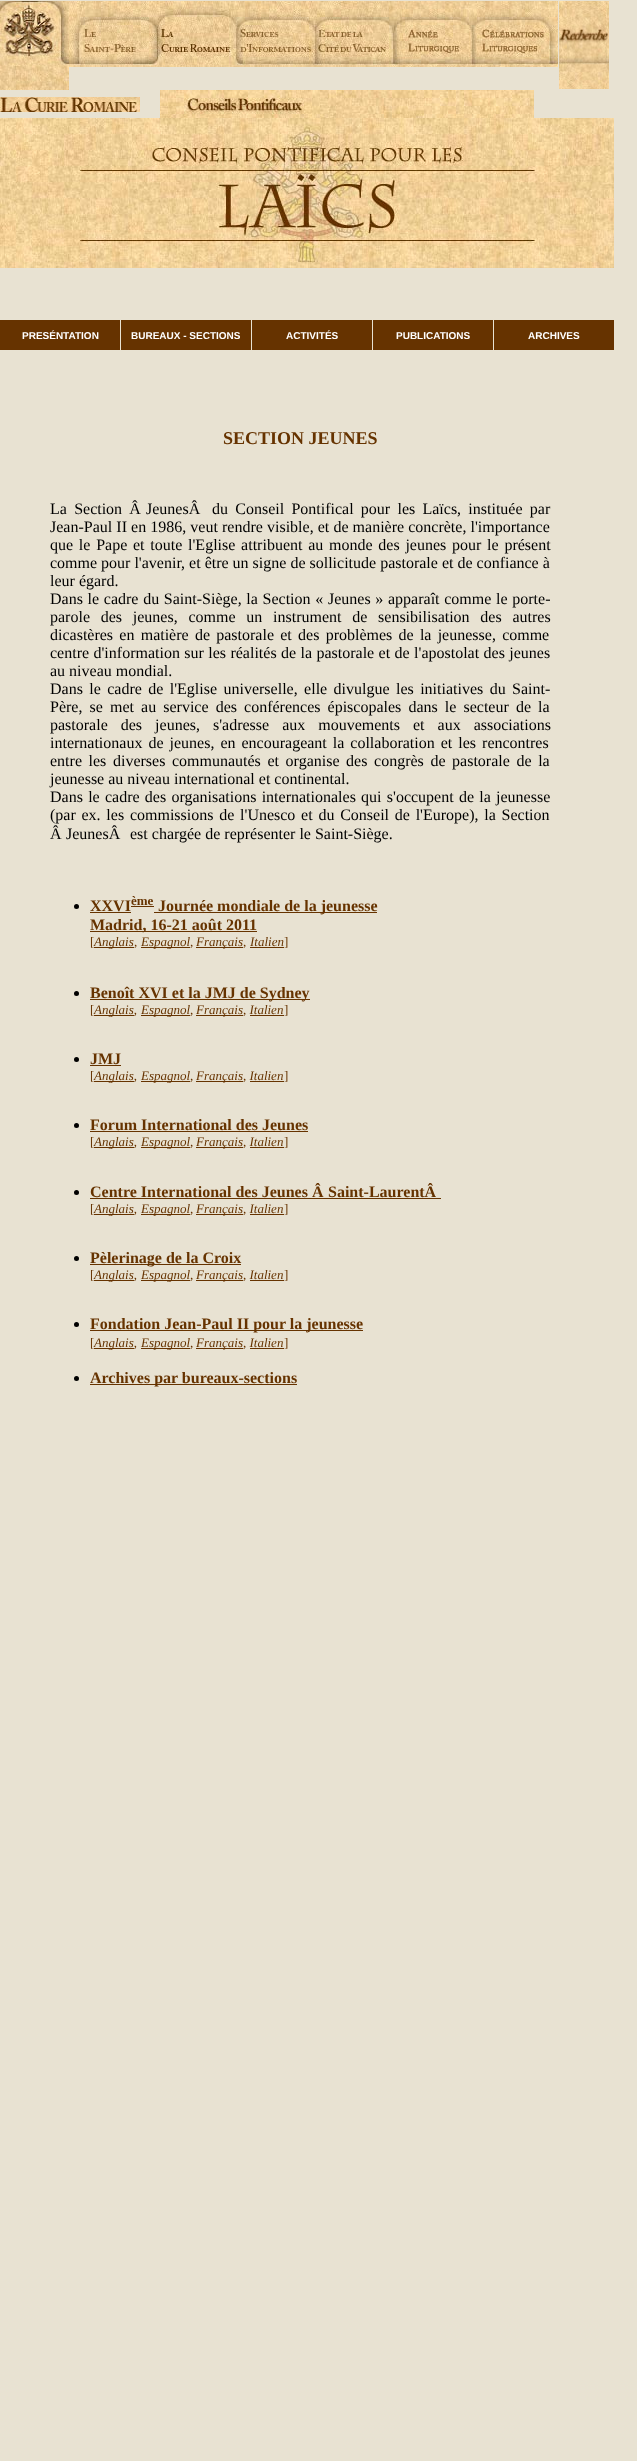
<!DOCTYPE html>
<meta charset="utf-8">
<style>body { margin: 0 } canvas { display: block }</style>
<canvas id="canvas" width="637" height="2461"></canvas>
<img id="img1" src="img_01.png" hidden>
<img id="img2" src="img_02.png" hidden>
<img id="img3" src="img_03.png" hidden>
<img id="img4" src="img_04.png" hidden>
<img id="img5" src="img_05.png" hidden>
<img id="img6" src="img_06.png" hidden>
<script>
window.onload = function () {
	const canvas = document.getElementById("canvas");
	const ctx = canvas.getContext("2d");
	ctx.miterLimit = 4;
	ctx.fontKerning = "normal";
	function txt(s, x, y) {
		ctx.fillText(s, x, y);
	}
	function fill(x, y, w, h) {
		ctx.fillRect(x, y, w, h);
	}
	function img(id, x, y, w, h) {
		ctx.drawImage(document.getElementById(id), x, y, w, h);
	}

	ctx.fillStyle = "#E8E2D2";
	fill(0, 0, 637, 2461);
	img("img1", 0, 1, 69, 89);
	img("img2", 69, 1, 489, 66);
	img("img3", 559, 1, 50, 88);
	img("img4", 0, 97, 140, 15);
	img("img5", 160, 90, 374, 28);
	img("img6", 0, 118, 614, 150);
	ctx.fillStyle = "#663300";
	fill(0, 320, 120, 30);
	fill(121, 320, 130, 30);
	fill(252, 320, 120, 30);
	fill(373, 320, 120, 30);
	fill(494, 320, 120, 30);
	ctx.fillStyle = "#000000";
	ctx.beginPath();
	ctx.arc(76.5, 906.5, 2.5, 0, Math.PI * 2);
	ctx.fill();
	ctx.fillStyle = "#663300";
	fill(90, 912, 41, 1);
	fill(131, 906, 23, 1);
	fill(154, 912, 223, 1);
	fill(90, 931, 167, 1);
	fill(94, 947, 40, 1);
	fill(141, 947, 49, 1);
	fill(196, 947, 47, 1);
	fill(250, 947, 34, 1);
	ctx.fillStyle = "#000000";
	ctx.beginPath();
	ctx.arc(76.5, 993.5, 2.5, 0, Math.PI * 2);
	ctx.fill();
	ctx.fillStyle = "#663300";
	fill(90, 999, 220, 1);
	fill(94, 1015, 40, 1);
	fill(141, 1015, 49, 1);
	fill(196, 1015, 47, 1);
	fill(250, 1015, 34, 1);
	ctx.fillStyle = "#000000";
	ctx.beginPath();
	ctx.arc(76.5, 1059.5, 2.5, 0, Math.PI * 2);
	ctx.fill();
	ctx.fillStyle = "#663300";
	fill(90, 1065, 31, 1);
	fill(94, 1081, 40, 1);
	fill(141, 1081, 49, 1);
	fill(196, 1081, 47, 1);
	fill(250, 1081, 34, 1);
	ctx.fillStyle = "#000000";
	ctx.beginPath();
	ctx.arc(76.5, 1125.5, 2.5, 0, Math.PI * 2);
	ctx.fill();
	ctx.fillStyle = "#663300";
	fill(90, 1131, 218, 1);
	fill(94, 1147, 40, 1);
	fill(141, 1147, 49, 1);
	fill(196, 1147, 47, 1);
	fill(250, 1147, 34, 1);
	ctx.fillStyle = "#000000";
	ctx.beginPath();
	ctx.arc(76.5, 1192.5, 2.5, 0, Math.PI * 2);
	ctx.fill();
	ctx.fillStyle = "#663300";
	fill(90, 1198, 351, 1);
	fill(94, 1214, 40, 1);
	fill(141, 1214, 49, 1);
	fill(196, 1214, 47, 1);
	fill(250, 1214, 34, 1);
	ctx.fillStyle = "#000000";
	ctx.beginPath();
	ctx.arc(76.5, 1258.5, 2.5, 0, Math.PI * 2);
	ctx.fill();
	ctx.fillStyle = "#663300";
	fill(90, 1264, 151, 1);
	fill(94, 1280, 40, 1);
	fill(141, 1280, 49, 1);
	fill(196, 1280, 47, 1);
	fill(250, 1280, 34, 1);
	ctx.fillStyle = "#000000";
	ctx.beginPath();
	ctx.arc(76.5, 1324.5, 2.5, 0, Math.PI * 2);
	ctx.fill();
	ctx.fillStyle = "#663300";
	fill(90, 1330, 273, 1);
	fill(94, 1348, 40, 1);
	fill(141, 1348, 49, 1);
	fill(196, 1348, 47, 1);
	fill(250, 1348, 34, 1);
	ctx.fillStyle = "#000000";
	ctx.beginPath();
	ctx.arc(76.5, 1378.5, 2.5, 0, Math.PI * 2);
	ctx.fill();
	ctx.fillStyle = "#663300";
	fill(90, 1384, 207, 1);
	ctx.font = "bold 10px Liberation Sans";
	ctx.fillStyle = "#FFFFFF";
	txt("PRESÉNTATION", 22, 339);
	txt("BUREAUX - SECTIONS", 131, 339);
	txt("ACTIVITÉS", 286, 339);
	txt("PUBLICATIONS", 396, 339);
	txt("ARCHIVES", 528, 339);
	ctx.font = "bold 18px Liberation Serif";
	ctx.fillStyle = "#663300";
	txt("SECTION JEUNES", 223, 444);
	ctx.wordSpacing = "3.25px";
	ctx.font = "16px Liberation Serif";
	ctx.fillStyle = "#000000";
	txt("La Section Â", 50, 514);
	ctx.wordSpacing = "0px";
	txt("JeunesÂ", 146, 514);
	ctx.wordSpacing = "3.25px";
	txt("du Conseil Pontifical pour les Laïcs, instituée par", 212, 514);
	ctx.wordSpacing = "0.1px";
	txt("Jean-Paul II en 1986, veut rendre visible, et de manière concrète, l'importance", 50, 532);
	ctx.wordSpacing = "1.75px";
	txt("que le Pape et toute l'Eglise attribuent au monde des jeunes pour le présent", 50, 550);
	ctx.wordSpacing = "0px";
	txt("comme pour l'avenir, et être un signe de sollicitude pastorale et de confiance à", 50, 568);
	txt("leur égard.", 50, 586);
	ctx.wordSpacing = "0.7px";
	txt("Dans le cadre du Saint-Siège, la Section « Jeunes » apparaît comme le porte-", 50, 604);
	ctx.wordSpacing = "6.75px";
	txt("parole des jeunes, comme un instrument de sensibilisation des autres", 50, 622);
	ctx.wordSpacing = "2.25px";
	txt("dicastères en matière de pastorale et des problèmes de la jeunesse, comme", 50, 640);
	ctx.wordSpacing = "0.4px";
	txt("centre d'information sur les réalités de la pastorale et de l'apostolat des jeunes", 50, 658);
	ctx.wordSpacing = "0px";
	txt("au niveau mondial.", 50, 676);
	ctx.wordSpacing = "2.4px";
	txt("Dans le cadre de l'Eglise universelle, elle divulgue les initiatives du Saint-", 50, 694);
	ctx.wordSpacing = "3.1px";
	txt("Père, se met au service des conférences épiscopales dans le secteur de la", 50, 712);
	ctx.wordSpacing = "9px";
	txt("pastorale des jeunes, s'adresse aux mouvements et aux associations", 50, 730);
	ctx.wordSpacing = "2px";
	txt("internationaux de jeunes, en encourageant la collaboration et les rencontres", 50, 748);
	ctx.wordSpacing = "2.6px";
	txt("entre les diverses communautés et organise des congrès de pastorale de la", 50, 766);
	ctx.wordSpacing = "0px";
	txt("jeunesse au niveau international et continental.", 50, 784);
	ctx.wordSpacing = "1.25px";
	txt("Dans le cadre des organisations internationales qui s'occupent de la jeunesse", 50, 802);
	ctx.wordSpacing = "1.75px";
	txt("(par ex. les commissions de l'Unesco et du Conseil de l'Europe), la Section", 50, 820);
	ctx.wordSpacing = "0px";
	txt("Â", 50, 839);
	txt("JeunesÂ", 66, 839);
	txt("est chargée de représenter le Saint-Siège.", 130, 839);
	ctx.font = "bold 16px Liberation Serif";
	ctx.fillStyle = "#663300";
	txt("XXVI", 90, 911);
	ctx.font = "bold 13px Liberation Serif";
	txt("ème", 131, 905);
	ctx.font = "bold 16px Liberation Serif";
	txt("Journée mondiale de la jeunesse", 158, 911);
	txt("Madrid, 16-21 août 2011", 90, 930);
	ctx.font = "13px Liberation Serif";
	txt("[", 90, 946);
	ctx.font = "italic 13px Liberation Serif";
	txt("Anglais", 94, 946);
	ctx.font = "13px Liberation Serif";
	txt(",", 134, 946);
	ctx.font = "italic 13px Liberation Serif";
	txt("Espagnol", 141, 946);
	ctx.font = "13px Liberation Serif";
	txt(",", 190, 946);
	ctx.font = "italic 13px Liberation Serif";
	txt("Français", 196, 946);
	ctx.font = "13px Liberation Serif";
	txt(",", 243, 946);
	ctx.font = "italic 13px Liberation Serif";
	txt("Italien", 250, 946);
	ctx.font = "13px Liberation Serif";
	txt("]", 284, 946);
	ctx.font = "bold 16px Liberation Serif";
	txt("Benoît XVI et la JMJ de Sydney", 90, 998);
	ctx.font = "13px Liberation Serif";
	txt("[", 90, 1014);
	ctx.font = "italic 13px Liberation Serif";
	txt("Anglais,", 94, 1014);
	txt("Espagnol,", 141, 1014);
	txt("Français, Italien", 196, 1014);
	ctx.font = "13px Liberation Serif";
	txt("]", 284, 1014);
	ctx.font = "bold 16px Liberation Serif";
	txt("JMJ", 90, 1064);
	ctx.font = "13px Liberation Serif";
	txt("[", 90, 1080);
	ctx.font = "italic 13px Liberation Serif";
	txt("Anglais,", 94, 1080);
	txt("Espagnol,", 141, 1080);
	txt("Français, Italien", 196, 1080);
	ctx.font = "13px Liberation Serif";
	txt("]", 284, 1080);
	ctx.font = "bold 16px Liberation Serif";
	txt("Forum International des Jeunes", 90, 1130);
	ctx.font = "13px Liberation Serif";
	txt("[", 90, 1146);
	ctx.font = "italic 13px Liberation Serif";
	txt("Anglais,", 94, 1146);
	txt("Espagnol,", 141, 1146);
	txt("Français, Italien", 196, 1146);
	ctx.font = "13px Liberation Serif";
	txt("]", 284, 1146);
	ctx.font = "bold 16px Liberation Serif";
	txt("Centre International des Jeunes Â", 90, 1197);
	txt("Saint-LaurentÂ", 328, 1197);
	ctx.font = "13px Liberation Serif";
	txt("[", 90, 1213);
	ctx.font = "italic 13px Liberation Serif";
	txt("Anglais,", 94, 1213);
	txt("Espagnol,", 141, 1213);
	txt("Français, Italien", 196, 1213);
	ctx.font = "13px Liberation Serif";
	txt("]", 284, 1213);
	ctx.font = "bold 16px Liberation Serif";
	txt("Pèlerinage de la Croix", 90, 1263);
	ctx.font = "13px Liberation Serif";
	txt("[", 90, 1279);
	ctx.font = "italic 13px Liberation Serif";
	txt("Anglais,", 94, 1279);
	txt("Espagnol,", 141, 1279);
	txt("Français, Italien", 196, 1279);
	ctx.font = "13px Liberation Serif";
	txt("]", 284, 1279);
	ctx.font = "bold 16px Liberation Serif";
	txt("Fondation Jean-Paul II pour la jeunesse", 90, 1329);
	ctx.font = "13px Liberation Serif";
	txt("[", 90, 1347);
	ctx.font = "italic 13px Liberation Serif";
	txt("Anglais,", 94, 1347);
	txt("Espagnol,", 141, 1347);
	txt("Français, Italien", 196, 1347);
	ctx.font = "13px Liberation Serif";
	txt("]", 284, 1347);
	ctx.font = "bold 16px Liberation Serif";
	txt("Archives par bureaux-sections", 90, 1383);
};
</script>
